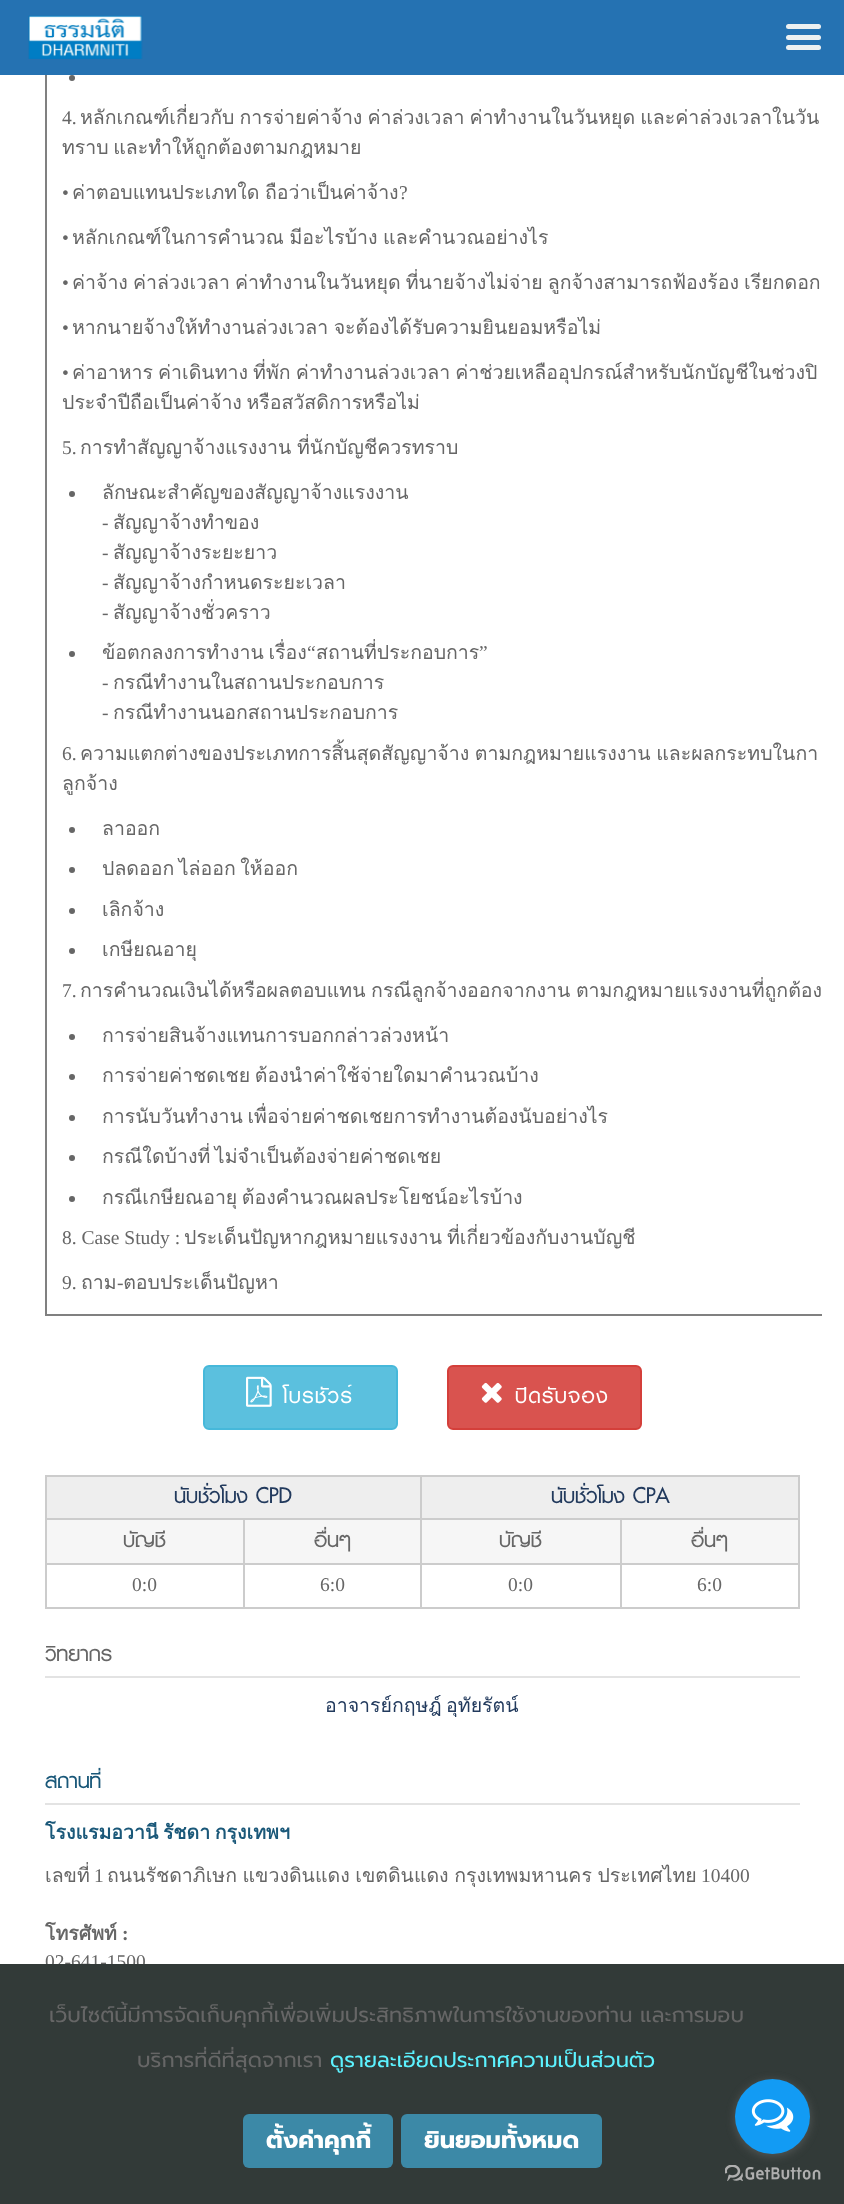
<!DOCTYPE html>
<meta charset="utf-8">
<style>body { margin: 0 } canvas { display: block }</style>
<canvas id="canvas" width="844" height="2204"></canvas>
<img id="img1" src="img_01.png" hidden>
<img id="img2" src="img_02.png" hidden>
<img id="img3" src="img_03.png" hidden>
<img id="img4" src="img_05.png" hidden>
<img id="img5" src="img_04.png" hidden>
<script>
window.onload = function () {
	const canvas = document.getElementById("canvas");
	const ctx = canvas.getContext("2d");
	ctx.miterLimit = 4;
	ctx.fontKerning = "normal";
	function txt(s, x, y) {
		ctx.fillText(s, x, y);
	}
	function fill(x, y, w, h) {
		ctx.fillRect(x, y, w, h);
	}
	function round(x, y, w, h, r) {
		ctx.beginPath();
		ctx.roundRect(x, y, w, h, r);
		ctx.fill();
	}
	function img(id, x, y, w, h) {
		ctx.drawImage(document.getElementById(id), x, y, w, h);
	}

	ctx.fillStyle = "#FFFFFF";
	fill(0, 0, 844, 2204);
	ctx.fillStyle = "#2572B2";
	fill(0, 0, 844, 75);
	img("img1", 28, 15, 115, 44);
	ctx.fillStyle = "#ECF0F1";
	round(786, 24, 35, 5, 2.5);
	round(786, 35, 35, 5, 2.5);
	round(786, 45, 35, 5, 2.5);
	ctx.fillStyle = "#808080";
	fill(45, 1314, 777, 2);
	fill(45, 75, 2, 1241);
	ctx.fillStyle = "#666666";
	ctx.beginPath();
	ctx.arc(72, 78, 3, 0, Math.PI * 2);
	ctx.fill();
	ctx.beginPath();
	ctx.arc(72, 494, 3, 0, Math.PI * 2);
	ctx.fill();
	ctx.beginPath();
	ctx.arc(72, 654, 3, 0, Math.PI * 2);
	ctx.fill();
	ctx.beginPath();
	ctx.arc(72, 830, 3, 0, Math.PI * 2);
	ctx.fill();
	ctx.beginPath();
	ctx.arc(72, 870, 3, 0, Math.PI * 2);
	ctx.fill();
	ctx.beginPath();
	ctx.arc(72, 911, 3, 0, Math.PI * 2);
	ctx.fill();
	ctx.beginPath();
	ctx.arc(72, 951, 3, 0, Math.PI * 2);
	ctx.fill();
	ctx.beginPath();
	ctx.arc(72, 1037, 3, 0, Math.PI * 2);
	ctx.fill();
	ctx.beginPath();
	ctx.arc(72, 1077, 3, 0, Math.PI * 2);
	ctx.fill();
	ctx.beginPath();
	ctx.arc(72, 1118, 3, 0, Math.PI * 2);
	ctx.fill();
	ctx.beginPath();
	ctx.arc(72, 1158, 3, 0, Math.PI * 2);
	ctx.fill();
	ctx.beginPath();
	ctx.arc(72, 1199, 3, 0, Math.PI * 2);
	ctx.fill();
	ctx.fillStyle = "#5BC0DE";
	ctx.beginPath();
	ctx.roundRect(204, 1366, 193, 63, 5);
	ctx.fill();
	ctx.strokeStyle = "#46B8DA";
	ctx.lineWidth = 2;
	ctx.stroke();
	img("img2", 246, 1376, 26, 31);
	ctx.fillStyle = "#D9534F";
	ctx.beginPath();
	ctx.roundRect(448, 1366, 193, 63, 5);
	ctx.fill();
	ctx.strokeStyle = "#D43F3A";
	ctx.stroke();
	img("img3", 481, 1382, 21, 21);
	ctx.fillStyle = "#EEEEEE";
	fill(47, 1477, 373, 41);
	ctx.fillStyle = "#CCCCCC";
	fill(420, 1475, 380, 2);
	fill(620, 1518, 180, 2);
	fill(620, 1563, 180, 2);
	fill(798, 1563, 2, 45);
	fill(620, 1607, 180, 2);
	fill(620, 1563, 2, 45);
	fill(420, 1563, 201, 2);
	fill(620, 1518, 2, 47);
	fill(420, 1518, 201, 2);
	fill(420, 1607, 201, 2);
	fill(420, 1563, 2, 45);
	fill(243, 1563, 179, 2);
	fill(420, 1518, 2, 47);
	fill(243, 1518, 179, 2);
	fill(420, 1475, 2, 45);
	fill(45, 1475, 377, 2);
	fill(243, 1607, 179, 2);
	fill(243, 1563, 2, 45);
	fill(45, 1563, 200, 2);
	fill(243, 1518, 2, 47);
	fill(45, 1518, 200, 2);
	fill(45, 1607, 200, 2);
	fill(45, 1563, 2, 45);
	fill(45, 1518, 2, 47);
	fill(45, 1475, 2, 45);
	ctx.fillStyle = "#EEEEEE";
	fill(422, 1477, 376, 41);
	ctx.fillStyle = "#CCCCCC";
	fill(798, 1518, 2, 47);
	fill(798, 1475, 2, 45);
	ctx.fillStyle = "#F6F6F6";
	fill(47, 1520, 196, 43);
	fill(245, 1520, 175, 43);
	fill(422, 1520, 198, 43);
	fill(622, 1520, 176, 43);
	ctx.fillStyle = "#E3E3E3";
	fill(45, 1676, 755, 2);
	fill(45, 1803, 755, 2);
	ctx.font = "19.5px Liberation Serif";
	ctx.fillStyle = "#666666";
	txt("4.", 62, 124);
	ctx.wordSpacing = "-1.5px";
	ctx.font = "19.5px Loma";
	txt("หลักเกณฑ์เกี่ยวกับ การจ่ายค่าจ้าง ค่าล่วงเวลา ค่าทำงานในวันหยุด และค่าล่วงเวลาในวัน", 80, 124);
	ctx.wordSpacing = "-2px";
	txt("ทราบ และทำให้ถูกต้องตามกฎหมาย", 62, 154);
	ctx.wordSpacing = "0px";
	ctx.font = "19.5px Liberation Serif";
	txt("•", 62, 199);
	ctx.wordSpacing = "-1px";
	ctx.font = "19.5px Loma";
	txt("ค่าตอบแทนประเภทใด ถือว่าเป็นค่าจ้าง", 72, 199);
	ctx.wordSpacing = "0px";
	ctx.font = "19.5px Liberation Serif";
	txt("?", 399, 199);
	txt("•", 62, 244);
	ctx.wordSpacing = "-1px";
	ctx.font = "19.5px Loma";
	txt("หลักเกณฑ์ในการคำนวณ มีอะไรบ้าง และคำนวณอย่างไร", 72, 244);
	ctx.wordSpacing = "0px";
	ctx.font = "19.5px Liberation Serif";
	txt("•", 62, 289);
	ctx.wordSpacing = "-1.5px";
	ctx.font = "19.5px Loma";
	txt("ค่าจ้าง ค่าล่วงเวลา ค่าทำงานในวันหยุด ที่นายจ้างไม่จ่าย ลูกจ้างสามารถฟ้องร้อง เรียกดอก", 72, 289);
	ctx.wordSpacing = "0px";
	ctx.font = "19.5px Liberation Serif";
	txt("•", 62, 334);
	ctx.wordSpacing = "-1px";
	ctx.font = "19.5px Loma";
	txt("หากนายจ้างให้ทำงานล่วงเวลา จะต้องได้รับความยินยอมหรือไม่", 72, 334);
	ctx.wordSpacing = "0px";
	ctx.font = "19.5px Liberation Serif";
	txt("•", 62, 379);
	ctx.wordSpacing = "-1.5px";
	ctx.font = "19.5px Loma";
	txt("ค่าอาหาร ค่าเดินทาง ที่พัก ค่าทำงานล่วงเวลา ค่าช่วยเหลืออุปกรณ์สำหรับนักบัญชีในช่วงปิ", 72, 379);
	ctx.wordSpacing = "-2px";
	txt("ประจำปีถือเป็นค่าจ้าง หรือสวัสดิการหรือไม่", 62, 409);
	ctx.wordSpacing = "0px";
	ctx.font = "19.5px Liberation Serif";
	txt("5.", 62, 454);
	ctx.wordSpacing = "-1px";
	ctx.font = "19.5px Loma";
	txt("การทำสัญญาจ้างแรงงาน ที่นักบัญชีควรทราบ", 80, 454);
	ctx.wordSpacing = "0px";
	txt("ลักษณะสำคัญของสัญญาจ้างแรงงาน", 102, 499);
	ctx.font = "19.5px Liberation Serif";
	txt("-", 102, 529);
	ctx.font = "19.5px Loma";
	txt("สัญญาจ้างทำของ", 113, 529);
	ctx.font = "19.5px Liberation Serif";
	txt("-", 102, 559);
	ctx.font = "19.5px Loma";
	txt("สัญญาจ้างระยะยาว", 113, 559);
	ctx.font = "19.5px Liberation Serif";
	txt("-", 102, 589);
	ctx.font = "19.5px Loma";
	txt("สัญญาจ้างกำหนดระยะเวลา", 113, 589);
	ctx.font = "19.5px Liberation Serif";
	txt("-", 102, 619);
	ctx.font = "19.5px Loma";
	txt("สัญญาจ้างชั่วคราว", 113, 619);
	ctx.wordSpacing = "-2px";
	txt("ข้อตกลงการทำงาน เรื่อง", 102, 659);
	ctx.wordSpacing = "0px";
	ctx.font = "19.5px Liberation Serif";
	txt("“", 307, 659);
	ctx.font = "19.5px Loma";
	txt("สถานที่ประกอบการ", 316, 659);
	ctx.font = "19.5px Liberation Serif";
	txt("”", 479, 659);
	txt("-", 102, 689);
	ctx.font = "19.5px Loma";
	txt("กรณีทำงานในสถานประกอบการ", 113, 689);
	ctx.font = "19.5px Liberation Serif";
	txt("-", 102, 719);
	ctx.font = "19.5px Loma";
	txt("กรณีทำงานนอกสถานประกอบการ", 113, 719);
	ctx.font = "19.5px Liberation Serif";
	txt("6.", 62, 760);
	ctx.wordSpacing = "-1px";
	ctx.font = "19.5px Loma";
	txt("ความแตกต่างของประเภทการสิ้นสุดสัญญาจ้าง ตามกฎหมายแรงงาน และผลกระทบในกา", 80, 760);
	ctx.wordSpacing = "0px";
	txt("ลูกจ้าง", 62, 790);
	txt("ลาออก", 102, 835);
	ctx.wordSpacing = "-2px";
	txt("ปลดออก ไล่ออก ให้ออก", 102, 875);
	ctx.wordSpacing = "0px";
	txt("เลิกจ้าง", 102, 916);
	txt("เกษียณอายุ", 102, 956);
	ctx.font = "19.5px Liberation Serif";
	txt("7.", 62, 997);
	ctx.wordSpacing = "-1px";
	ctx.font = "19.5px Loma";
	txt("การคำนวณเงินได้หรือผลตอบแทน กรณีลูกจ้างออกจากงาน ตามกฎหมายแรงงานที่ถูกต้อง", 80, 997);
	ctx.wordSpacing = "0px";
	txt("การจ่ายสินจ้างแทนการบอกกล่าวล่วงหน้า", 102, 1042);
	ctx.wordSpacing = "-2px";
	txt("การจ่ายค่าชดเชย ต้องนำค่าใช้จ่ายใดมาคำนวณบ้าง", 102, 1082);
	txt("การนับวันทำงาน เพื่อจ่ายค่าชดเชยการทำงานต้องนับอย่างไร", 102, 1123);
	txt("กรณีใดบ้างที่ ไม่จำเป็นต้องจ่ายค่าชดเชย", 102, 1163);
	txt("กรณีเกษียณอายุ ต้องคำนวณผลประโยชน์อะไรบ้าง", 102, 1204);
	ctx.wordSpacing = "0px";
	ctx.font = "19.5px Liberation Serif";
	txt("8. Case Study :", 62, 1244);
	ctx.font = "19.5px Loma";
	txt("ประเด็นปัญหากฎหมายแรงงาน", 184, 1244);
	txt("ที่เกี่ยวข้องกับงานบัญชี", 447, 1244);
	ctx.font = "19.5px Liberation Serif";
	txt("9.", 62, 1289);
	ctx.font = "19.5px Loma";
	txt("ถาม ตอบประเด็นปัญหา", 81, 1289);
	ctx.font = "19.5px Liberation Serif";
	txt("-", 117, 1289);
	ctx.letterSpacing = "1.5px";
	ctx.font = "bold 30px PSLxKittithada";
	ctx.fillStyle = "#FFFFFF";
	txt("โบรชัวร์", 283, 1403);
	txt("ปิดรับจอง", 515, 1403);
	ctx.letterSpacing = "0px";
	ctx.fillStyle = "#223A5D";
	txt("นับชั่วโมง CPD", 174, 1503);
	txt("นับชั่วโมง CPA", 551, 1503);
	ctx.fillStyle = "#666666";
	txt("บัญชี", 123, 1547);
	txt("อื่นๆ", 314, 1547);
	txt("บัญชี", 499, 1547);
	txt("อื่นๆ", 691, 1547);
	ctx.font = "19.5px Liberation Serif";
	txt("0:0", 132, 1591);
	txt("6:0", 320, 1591);
	txt("0:0", 508, 1591);
	txt("6:0", 697, 1591);
	ctx.font = "bold 30px PSLxKittithada";
	txt("วิทยากร", 45, 1661);
	ctx.wordSpacing = "-2px";
	ctx.font = "19.5px Loma";
	ctx.fillStyle = "#223A5D";
	txt("อาจารย์กฤษฎ์ อุทัยรัตน์", 325, 1712);
	ctx.wordSpacing = "0px";
	ctx.font = "bold 30px PSLxKittithada";
	ctx.fillStyle = "#1A5879";
	txt("สถานที่", 45, 1788);
	ctx.wordSpacing = "-2px";
	ctx.font = "bold 19.5px Loma";
	txt("โรงแรมอวานี รัชดา กรุงเทพฯ", 45, 1839);
	ctx.wordSpacing = "0px";
	ctx.font = "19.5px Loma";
	ctx.fillStyle = "#666666";
	txt("เลขที่", 45, 1882);
	ctx.font = "19.5px Liberation Serif";
	txt("1", 94, 1882);
	ctx.wordSpacing = "-1px";
	ctx.font = "19.5px Loma";
	txt("ถนนรัชดาภิเษก แขวงดินแดง เขตดินแดง กรุงเทพมหานคร ประเทศไทย", 107, 1882);
	ctx.wordSpacing = "0px";
	ctx.font = "19.5px Liberation Serif";
	txt("10400", 701, 1882);
	ctx.font = "bold 19.5px Loma";
	txt("โทรศัพท์", 45, 1940);
	ctx.font = "bold 19.5px Liberation Serif";
	txt(":", 122, 1940);
	ctx.font = "19.5px Liberation Serif";
	txt("02-641-1500", 45, 1968);
	ctx.fillStyle = "#323A38";
	fill(0, 1964, 844, 240);
	ctx.font = "21px Prompt";
	ctx.fillStyle = "#666666";
	txt("เว็บไซต์นี้มีการจัดเก็บคุกกี้เพื่อเพิ่มประสิทธิภาพในการใช้งานของท่าน และการมอบ", 49, 2022);
	txt("บริการที่ดีที่สุดจากเรา", 137, 2067);
	ctx.fillStyle = "#5CF2FF";
	txt("ดูรายละเอียดประกาศความเป็นส่วนตัว", 330, 2067);
	ctx.fillStyle = "#3C89A7";
	round(243, 2114, 150, 54, 6);
	ctx.font = "bold 24px Prompt";
	ctx.fillStyle = "#FFFFFF";
	txt("ตั้งค่าคุกกี้", 266, 2148);
	ctx.fillStyle = "#3C89A7";
	round(401, 2114, 201, 54, 6);
	ctx.fillStyle = "#FFFFFF";
	txt("ยินยอมทั้งหมด", 424, 2148);
	img("img4", 725, 2165, 96, 16);
	ctx.fillStyle = "rgba(136, 136, 136, 0.4)";
	ctx.filter = "blur(5px)";
	ctx.beginPath();
	ctx.roundRect(735, 2081, 75, 75, 37.5);
	ctx.fill();
	ctx.filter = "none";
	ctx.fillStyle = "#129BF4";
	ctx.beginPath();
	ctx.arc(772.5, 2116.5, 37.5, 0, Math.PI * 2);
	ctx.fill();
	img("img5", 751, 2099, 43, 33);
};
</script>
